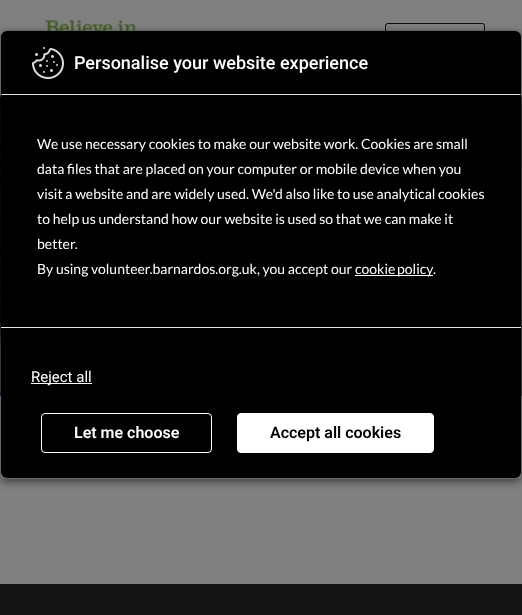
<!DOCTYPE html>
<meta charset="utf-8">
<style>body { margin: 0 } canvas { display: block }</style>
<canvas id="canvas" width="522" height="615"></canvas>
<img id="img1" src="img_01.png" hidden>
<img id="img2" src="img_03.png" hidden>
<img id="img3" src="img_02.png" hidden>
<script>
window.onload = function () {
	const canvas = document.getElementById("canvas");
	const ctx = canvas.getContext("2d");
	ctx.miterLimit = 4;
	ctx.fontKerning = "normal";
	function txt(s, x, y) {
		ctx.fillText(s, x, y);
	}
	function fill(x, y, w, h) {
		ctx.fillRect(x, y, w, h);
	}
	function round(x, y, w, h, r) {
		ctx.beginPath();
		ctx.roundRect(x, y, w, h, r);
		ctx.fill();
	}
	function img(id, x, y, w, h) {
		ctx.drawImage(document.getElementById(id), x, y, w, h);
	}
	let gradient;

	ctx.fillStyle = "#808080";
	fill(0, 0, 522, 615);
	ctx.fillStyle = "#676767";
	fill(0, 95, 522, 1);
	img("img1", 45, 20, 91, 11);
	ctx.fillStyle = "#696969";
	round(385, 23, 100, 40, 3);
	ctx.save();
	ctx.beginPath();
	ctx.roundRect(385, 23, 100, 40, 3);
	ctx.clip();
	gradient = ctx.createLinearGradient(435, 24, 435, 62);
	gradient.addColorStop(0, "#808080");
	gradient.addColorStop(1, "rgba(128, 128, 128, 0)");
	ctx.fillStyle = gradient;
	fill(385, 24, 100, 7);
	ctx.restore();
	ctx.beginPath();
	ctx.roundRect(385.5, 23.5, 99, 39, 2.5);
	ctx.strokeStyle = "#0F0F0F";
	ctx.stroke();
	img("img2", 0, 96, 522, 300);
	ctx.fillStyle = "rgba(88, 88, 88, 0.5)";
	fill(0, 96, 522, 1);
	fill(0, 395, 522, 1);
	ctx.save();
	ctx.beginPath();
	ctx.moveTo(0, 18);
	ctx.lineTo(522, 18);
	ctx.lineTo(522, 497);
	ctx.lineTo(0, 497);
	ctx.closePath();
	ctx.moveTo(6, 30);
	ctx.lineTo(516, 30);
	ctx.bezierCurveTo(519.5, 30, 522, 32.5, 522, 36);
	ctx.lineTo(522, 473);
	ctx.bezierCurveTo(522, 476.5, 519.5, 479, 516, 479);
	ctx.lineTo(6, 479);
	ctx.bezierCurveTo(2.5, 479, 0, 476.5, 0, 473);
	ctx.lineTo(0, 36);
	ctx.bezierCurveTo(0, 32.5, 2.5, 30, 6, 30);
	ctx.closePath();
	ctx.clip("evenodd");
	ctx.fillStyle = "rgba(0, 0, 0, 0.5)";
	ctx.filter = "blur(4.5px)";
	ctx.beginPath();
	ctx.roundRect(0, 33, 522, 449, 6);
	ctx.fill();
	ctx.filter = "none";
	ctx.restore();
	ctx.beginPath();
	ctx.roundRect(0.5, 30.5, 521, 448, 5.5);
	ctx.strokeStyle = "rgba(0, 0, 0, 0.2)";
	ctx.stroke();
	ctx.fillStyle = "#000000";
	ctx.beginPath();
	ctx.roundRect(1, 31, 520, 64, [6, 6, 0, 0]);
	ctx.fill();
	ctx.fillStyle = "rgba(0, 0, 0, 0.2)";
	ctx.beginPath();
	ctx.moveTo(7, 31);
	ctx.bezierCurveTo(6, 31, 4, 32, 3, 33);
	ctx.bezierCurveTo(4, 32, 6, 32, 7, 32);
	ctx.lineTo(515, 32);
	ctx.bezierCurveTo(516, 32, 518, 32, 519, 33);
	ctx.bezierCurveTo(518, 32, 516, 31, 515, 31);
	ctx.closePath();
	ctx.fill();
	ctx.beginPath();
	ctx.moveTo(521, 95);
	ctx.lineTo(521, 37);
	ctx.bezierCurveTo(521, 36, 520, 34, 519, 33);
	ctx.bezierCurveTo(520, 34, 520, 36, 520, 37);
	ctx.lineTo(520, 94);
	ctx.closePath();
	ctx.fill();
	ctx.fillStyle = "#E5E5E5";
	ctx.beginPath();
	ctx.moveTo(521, 95);
	ctx.lineTo(520, 94);
	ctx.lineTo(2, 94);
	ctx.lineTo(1, 95);
	ctx.closePath();
	ctx.fill();
	ctx.fillStyle = "rgba(0, 0, 0, 0.2)";
	ctx.beginPath();
	ctx.moveTo(1, 95);
	ctx.lineTo(2, 94);
	ctx.lineTo(2, 37);
	ctx.bezierCurveTo(2, 36, 2, 34, 3, 33);
	ctx.bezierCurveTo(2, 34, 1, 36, 1, 37);
	ctx.closePath();
	ctx.fill();
	img("img3", 32, 47, 32, 32);
	ctx.fillStyle = "#000000";
	fill(1, 95, 520, 232);
	ctx.fillStyle = "#FFFFFF";
	fill(355, 275, 78, 1);
	ctx.fillStyle = "#000000";
	ctx.beginPath();
	ctx.roundRect(1, 327, 520, 151, [0, 0, 6, 6]);
	ctx.fill();
	ctx.fillStyle = "#E5E5E5";
	fill(1, 327, 520, 1);
	ctx.fillStyle = "#FFFFFF";
	fill(31, 383, 61, 1);
	ctx.beginPath();
	ctx.roundRect(41.5, 413.5, 170, 39, 3.5);
	ctx.strokeStyle = "#FFFFFF";
	ctx.stroke();
	ctx.beginPath();
	ctx.roundRect(237.5, 413.5, 196, 39, 3.5);
	ctx.fill();
	ctx.stroke();
	ctx.fillStyle = "#141414";
	fill(0, 584, 522, 31);
	ctx.font = "500 18px Roboto";
	ctx.fillStyle = "#FFFFFF";
	txt("Personalise your website experience", 74, 69);
	ctx.font = "14px Lato";
	txt("We use necessary cookies to make our website work. Cookies are small", 37, 149);
	txt("data files that are placed on your computer or mobile device when you", 37, 174);
	txt("visit a website and are widely used. We'd also like to use analytical cookies", 37, 199);
	txt("to help us understand how our website is used so that we can make it", 37, 224);
	txt("better.", 37, 249);
	txt("By using volunteer.barnardos.org.uk, you accept our", 37, 274);
	ctx.wordSpacing = "-1px";
	txt("cookie policy", 355, 274);
	ctx.wordSpacing = "0px";
	txt(".", 433, 274);
	ctx.font = "15px Roboto";
	txt("Reject all", 31, 382);
	ctx.font = "600 16px Roboto";
	txt("Let me choose", 74, 438);
	ctx.fillStyle = "#000000";
	txt("Accept all cookies", 270, 438);
};
</script>
